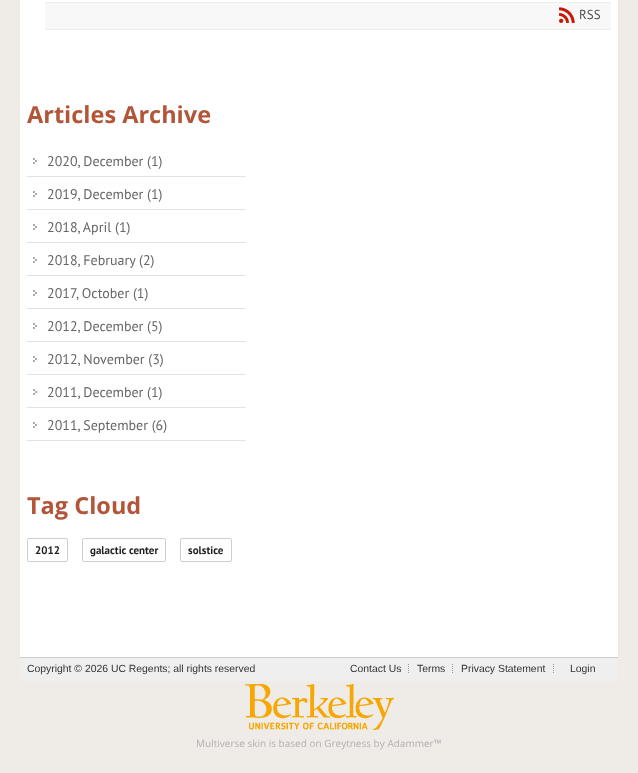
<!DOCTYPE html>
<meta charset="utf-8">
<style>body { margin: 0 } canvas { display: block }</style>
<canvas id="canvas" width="638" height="773"></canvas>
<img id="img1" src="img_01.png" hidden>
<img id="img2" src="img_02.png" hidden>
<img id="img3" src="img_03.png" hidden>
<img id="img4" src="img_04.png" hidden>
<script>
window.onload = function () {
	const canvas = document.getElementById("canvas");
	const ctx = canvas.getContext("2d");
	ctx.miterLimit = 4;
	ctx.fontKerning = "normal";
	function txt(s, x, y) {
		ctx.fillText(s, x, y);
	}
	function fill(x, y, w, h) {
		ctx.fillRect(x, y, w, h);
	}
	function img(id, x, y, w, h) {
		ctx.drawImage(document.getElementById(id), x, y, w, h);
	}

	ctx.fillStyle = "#EFEBE7";
	fill(0, 0, 638, 773);
	ctx.fillStyle = "#FFFFFF";
	fill(20, 0, 598, 657);
	ctx.fillStyle = "#F8F8F8";
	fill(45, 3, 566, 26);
	ctx.fillStyle = "#EEEEEE";
	fill(45, 2, 566, 1);
	fill(45, 29, 566, 1);
	img("img1", 559, 7, 16, 16);
	img("img2", 33, 158, 4, 6);
	ctx.fillStyle = "#E3E3E3";
	fill(27, 176, 219, 1);
	img("img2", 33, 191, 4, 6);
	fill(27, 209, 219, 1);
	img("img2", 33, 224, 4, 6);
	fill(27, 242, 219, 1);
	img("img2", 33, 257, 4, 6);
	fill(27, 275, 219, 1);
	img("img2", 33, 290, 4, 6);
	fill(27, 308, 219, 1);
	img("img2", 33, 323, 4, 6);
	fill(27, 341, 219, 1);
	img("img2", 33, 356, 4, 6);
	fill(27, 374, 219, 1);
	img("img2", 33, 389, 4, 6);
	fill(27, 407, 219, 1);
	img("img2", 33, 422, 4, 6);
	fill(27, 440, 219, 1);
	ctx.beginPath();
	ctx.roundRect(27.5, 538.5, 40, 23, 1.5);
	ctx.strokeStyle = "#CECECE";
	ctx.stroke();
	ctx.beginPath();
	ctx.roundRect(82.5, 538.5, 83, 23, 1.5);
	ctx.stroke();
	ctx.beginPath();
	ctx.roundRect(180.5, 538.5, 51, 23, 1.5);
	ctx.stroke();
	ctx.fillStyle = "#EFEFEF";
	fill(20, 658, 598, 23);
	ctx.fillStyle = "#CCCCCC";
	fill(20, 657, 598, 1);
	img("img3", 408, 664, 1, 9);
	img("img3", 452, 664, 1, 9);
	img("img3", 553, 664, 1, 9);
	img("img4", 245, 684, 149, 46);
	ctx.font = "13px PT Sans";
	ctx.fillStyle = "#504E4E";
	txt("RSS", 579, 19);
	ctx.font = "bold 23.5px Open Sans";
	ctx.fillStyle = "#B25538";
	txt("Articles Archive", 27, 123);
	ctx.font = "14px PT Sans";
	ctx.fillStyle = "#666666";
	txt("2020, December (1)", 47, 166);
	txt("2019, December (1)", 47, 199);
	txt("2018, April (1)", 47, 232);
	txt("2018, February (2)", 47, 265);
	txt("2017, October (1)", 47, 298);
	txt("2012, December (5)", 47, 331);
	txt("2012, November (3)", 47, 364);
	txt("2011, December (1)", 47, 397);
	txt("2011, September (6)", 47, 430);
	ctx.font = "bold 23.5px Open Sans";
	ctx.fillStyle = "#B25538";
	txt("Tag Cloud", 27, 514);
	ctx.font = "bold 11px PT Sans";
	ctx.fillStyle = "#212121";
	txt("2012", 35, 554);
	txt("galactic center", 90, 554);
	txt("solstice", 188, 554);
	ctx.font = "10.4px Liberation Sans";
	ctx.fillStyle = "#333333";
	txt("Copyright © 2026 UC Regents; all rights reserved", 27, 672);
	txt("Contact Us", 350, 672);
	txt("Terms", 417, 672);
	txt("Privacy Statement", 461, 672);
	txt("Login", 570, 672);
	ctx.font = "10px Open Sans";
	ctx.fillStyle = "#B2B2B2";
	txt("Multiverse skin is based on Greytness by Adammer™", 196, 747);
};
</script>
